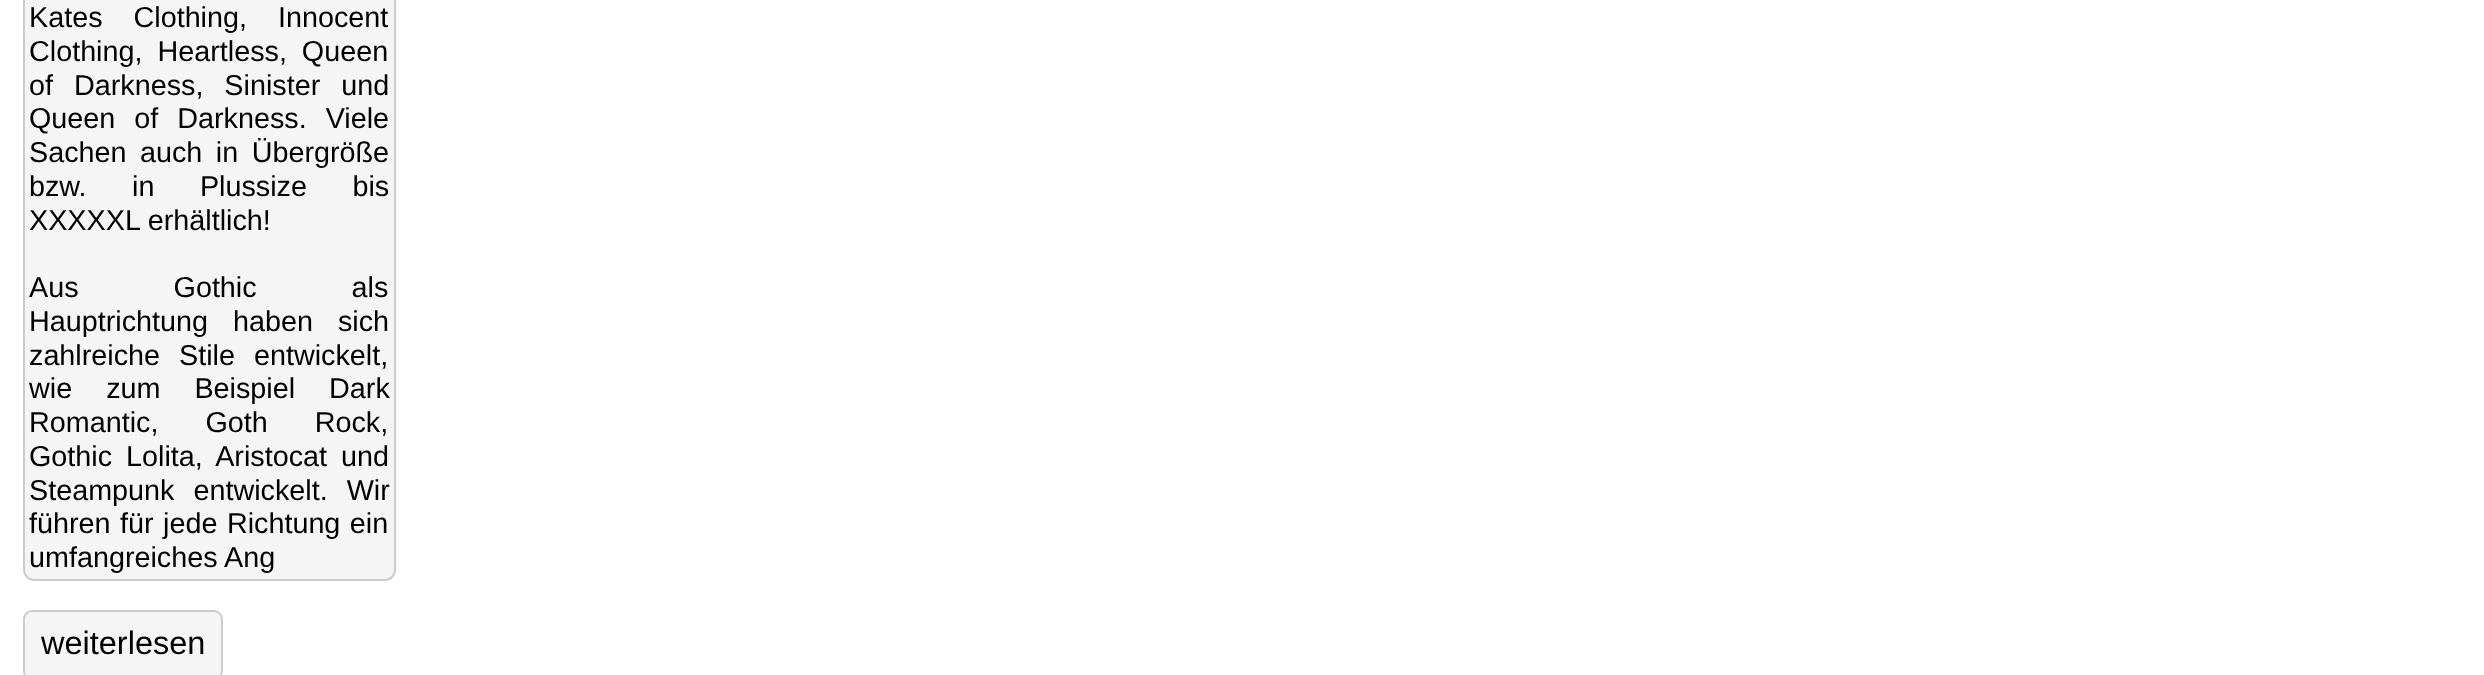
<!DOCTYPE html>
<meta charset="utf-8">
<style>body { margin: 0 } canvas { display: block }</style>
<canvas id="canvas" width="2484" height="675"></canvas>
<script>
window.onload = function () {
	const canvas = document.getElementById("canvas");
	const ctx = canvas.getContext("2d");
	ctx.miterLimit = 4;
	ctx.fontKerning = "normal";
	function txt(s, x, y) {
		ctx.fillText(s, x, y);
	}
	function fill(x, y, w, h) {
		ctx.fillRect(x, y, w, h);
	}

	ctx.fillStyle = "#FFFFFF";
	fill(0, 0, 2484, 675);
	ctx.fillStyle = "#F5F5F5";
	ctx.beginPath();
	ctx.roundRect(24, -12, 371, 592, 10);
	ctx.fill();
	ctx.strokeStyle = "#CCCCCC";
	ctx.lineWidth = 2;
	ctx.stroke();
	ctx.beginPath();
	ctx.roundRect(24, 611, 198, 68, 8);
	ctx.fill();
	ctx.stroke();
	ctx.wordSpacing = "23px";
	ctx.font = "28.75px Liberation Sans";
	ctx.fillStyle = "#000000";
	txt("Kates Clothing, Innocent", 29, 27);
	ctx.wordSpacing = "7px";
	txt("Clothing, Heartless, Queen", 29, 61);
	ctx.wordSpacing = "13px";
	txt("of Darkness, Sinister und", 29, 95);
	ctx.wordSpacing = "11px";
	txt("Queen of Darkness. Viele", 29, 128);
	ctx.wordSpacing = "5.5px";
	txt("Sachen auch in Übergröße", 29, 162);
	ctx.wordSpacing = "37.5px";
	txt("bzw. in Plussize bis", 29, 196);
	ctx.wordSpacing = "0px";
	txt("XXXXXL erhältlich!", 29, 230);
	ctx.wordSpacing = "87px";
	txt("Aus Gothic als", 29, 297);
	ctx.wordSpacing = "17px";
	txt("Hauptrichtung haben sich", 29, 331);
	ctx.wordSpacing = "11px";
	txt("zahlreiche Stile entwickelt,", 29, 365);
	ctx.wordSpacing = "26px";
	txt("wie zum Beispiel Dark", 29, 398);
	ctx.wordSpacing = "39px";
	txt("Romantic, Goth Rock,", 29, 432);
	ctx.wordSpacing = "6px";
	txt("Gothic Lolita, Aristocat und", 29, 466);
	ctx.wordSpacing = "11px";
	txt("Steampunk entwickelt. Wir", 29, 500);
	ctx.wordSpacing = "1.5px";
	txt("führen für jede Richtung ein", 29, 533);
	ctx.wordSpacing = "0px";
	txt("umfangreiches Ang", 29, 567);
	ctx.font = "32.5px Liberation Sans";
	txt("weiterlesen", 41, 654);
};
</script>
